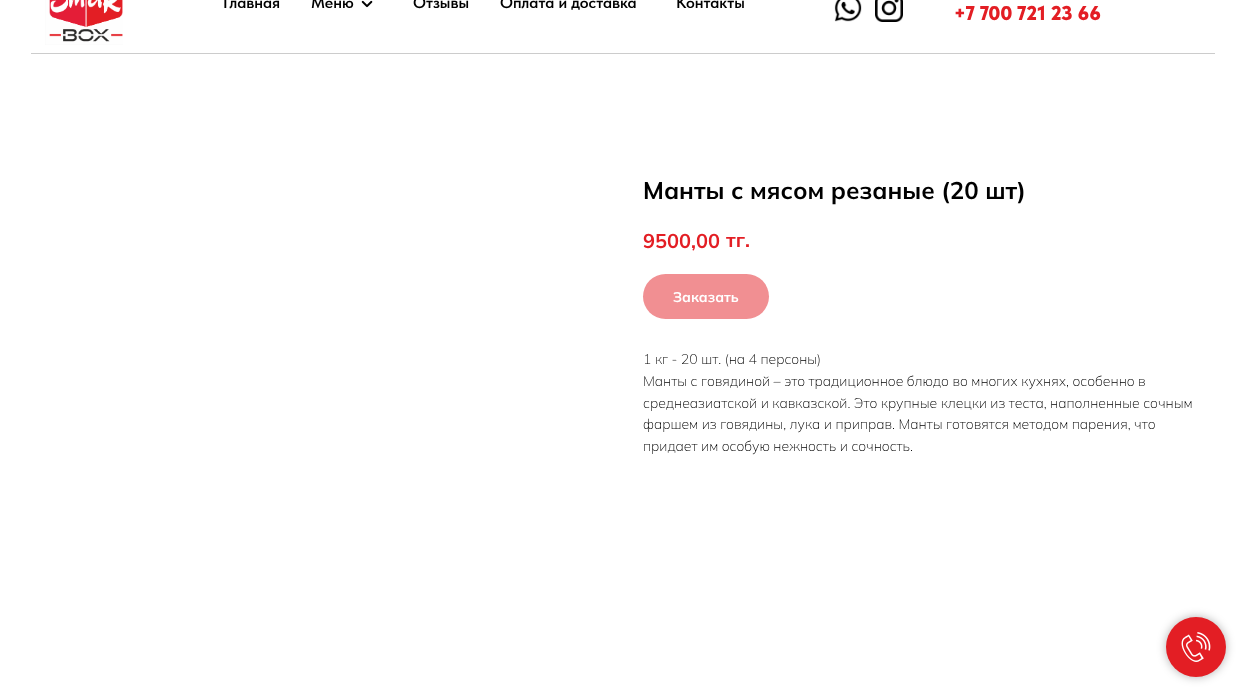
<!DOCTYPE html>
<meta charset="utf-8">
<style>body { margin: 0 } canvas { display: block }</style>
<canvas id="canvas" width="1246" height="697"></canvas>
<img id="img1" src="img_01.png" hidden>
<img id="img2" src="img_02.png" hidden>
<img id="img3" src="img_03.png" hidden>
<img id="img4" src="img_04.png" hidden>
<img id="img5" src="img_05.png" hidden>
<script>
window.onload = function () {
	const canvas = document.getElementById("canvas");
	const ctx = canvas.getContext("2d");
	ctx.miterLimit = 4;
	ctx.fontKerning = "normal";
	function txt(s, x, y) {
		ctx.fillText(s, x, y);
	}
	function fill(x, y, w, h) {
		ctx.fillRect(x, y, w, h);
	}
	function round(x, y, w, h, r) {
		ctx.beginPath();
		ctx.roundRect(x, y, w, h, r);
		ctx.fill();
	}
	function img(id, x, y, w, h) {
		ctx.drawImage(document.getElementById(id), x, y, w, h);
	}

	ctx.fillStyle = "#FFFFFF";
	fill(0, 0, 1246, 697);
	img("img1", 45, 0, 78, 45);
	img("img2", 361, 0, 12, 8);
	img("img3", 834, 0, 28, 22);
	img("img4", 875, 0, 28, 22);
	ctx.fillStyle = "#CCCCCC";
	fill(31, 53, 1184, 1);
	ctx.fillStyle = "#F18F92";
	round(643, 274, 126, 45, 22.5);
	ctx.fillStyle = "rgba(0, 0, 0, 0.3)";
	ctx.filter = "blur(5px)";
	ctx.beginPath();
	ctx.roundRect(1166, 617, 60, 60, 30);
	ctx.fill();
	ctx.filter = "none";
	ctx.fillStyle = "#E31E24";
	ctx.beginPath();
	ctx.arc(1196, 647, 30, 0, Math.PI * 2);
	ctx.fill();
	img("img5", 1181, 632, 30, 30);
	ctx.font = "600 16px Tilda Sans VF";
	ctx.fillStyle = "#000000";
	txt("Главная", 223, 8);
	txt("Меню", 311, 8);
	txt("Отзывы", 413, 8);
	txt("Оплата и доставка", 500, 8);
	txt("Контакты", 676, 8);
	ctx.font = "900 20px Tilda Sans VF";
	ctx.fillStyle = "#E31E24";
	txt("+7 700 721 23 66", 954, 20);
	ctx.font = "bold 24px Mulish";
	ctx.fillStyle = "#000000";
	txt("Манты с мясом резаные (20 шт)", 643, 199);
	ctx.font = "bold 20px Mulish";
	ctx.fillStyle = "#E31E24";
	txt("9500,00", 643, 248);
	txt("тг.", 726, 247);
	ctx.font = "bold 14px Mulish";
	ctx.fillStyle = "#FFFFFF";
	txt("Заказать", 673, 302);
	ctx.font = "200 14px Mulish";
	ctx.fillStyle = "#000000";
	txt("1 кг - 20 шт. (на 4 персоны)", 643, 364);
	txt("Манты с говядиной – это традиционное блюдо во многих кухнях, особенно в", 643, 386);
	txt("среднеазиатской и кавказской. Это крупные клецки из теста, наполненные сочным", 643, 408);
	txt("фаршем из говядины, лука и приправ. Манты готовятся методом парения, что", 643, 429);
	txt("придает им особую нежность и сочность.", 643, 451);
};
</script>
